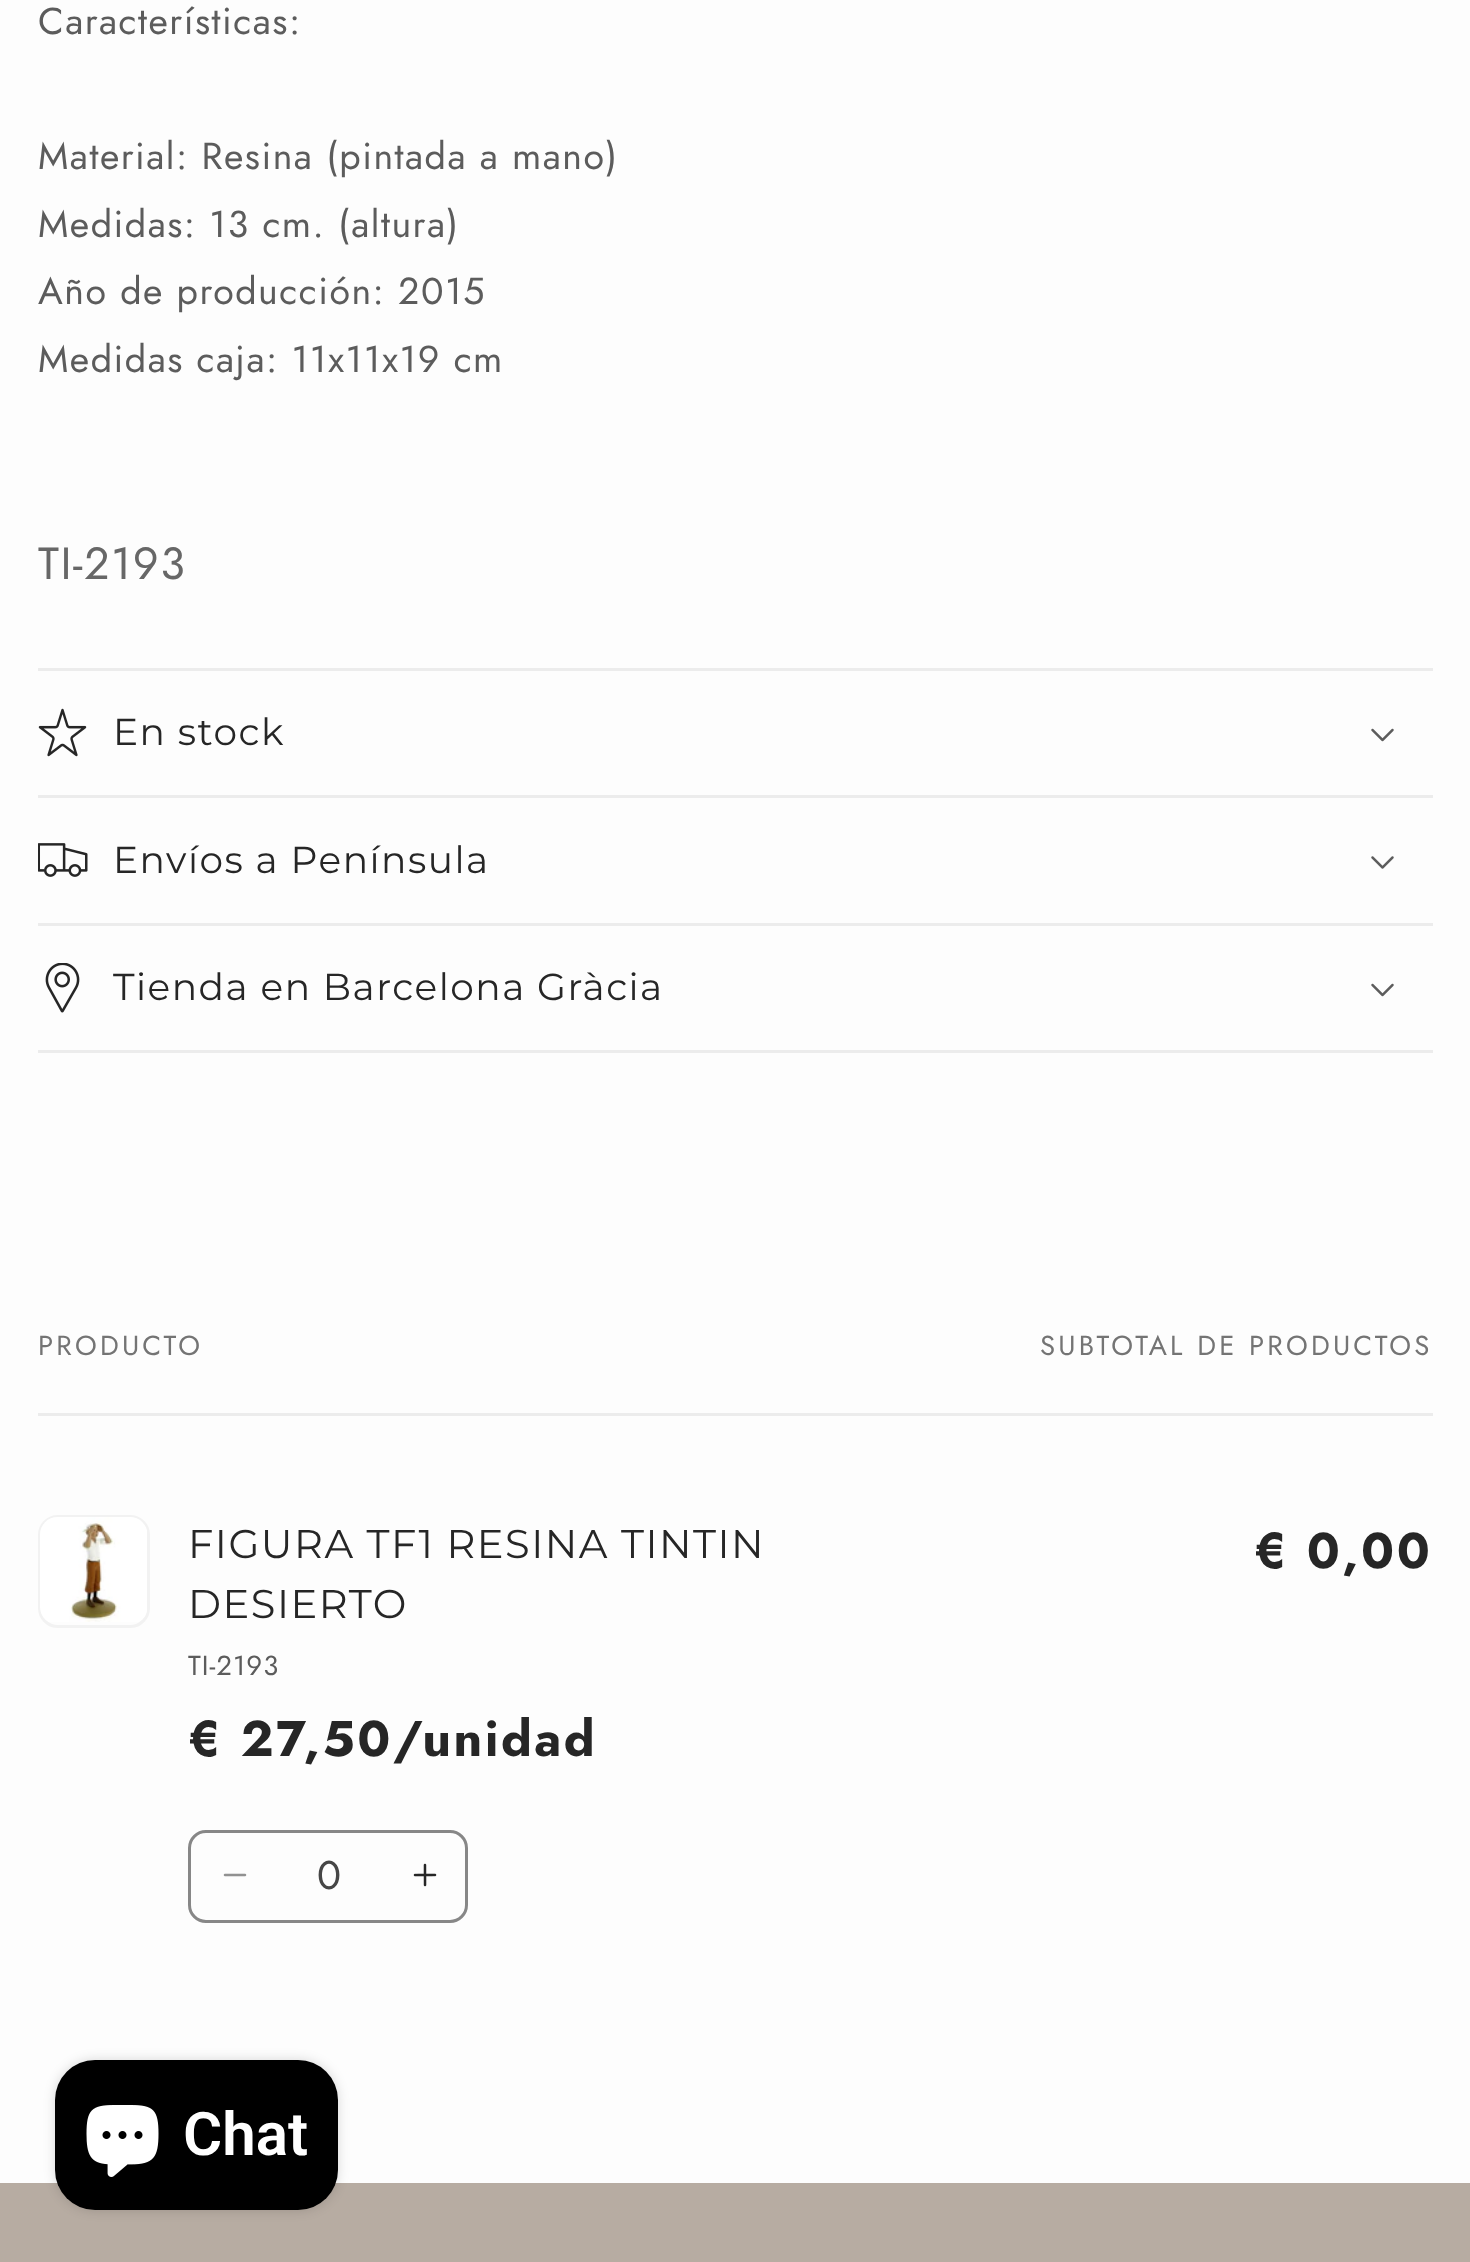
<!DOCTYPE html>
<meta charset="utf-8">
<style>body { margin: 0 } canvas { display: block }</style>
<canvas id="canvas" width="1470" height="2262"></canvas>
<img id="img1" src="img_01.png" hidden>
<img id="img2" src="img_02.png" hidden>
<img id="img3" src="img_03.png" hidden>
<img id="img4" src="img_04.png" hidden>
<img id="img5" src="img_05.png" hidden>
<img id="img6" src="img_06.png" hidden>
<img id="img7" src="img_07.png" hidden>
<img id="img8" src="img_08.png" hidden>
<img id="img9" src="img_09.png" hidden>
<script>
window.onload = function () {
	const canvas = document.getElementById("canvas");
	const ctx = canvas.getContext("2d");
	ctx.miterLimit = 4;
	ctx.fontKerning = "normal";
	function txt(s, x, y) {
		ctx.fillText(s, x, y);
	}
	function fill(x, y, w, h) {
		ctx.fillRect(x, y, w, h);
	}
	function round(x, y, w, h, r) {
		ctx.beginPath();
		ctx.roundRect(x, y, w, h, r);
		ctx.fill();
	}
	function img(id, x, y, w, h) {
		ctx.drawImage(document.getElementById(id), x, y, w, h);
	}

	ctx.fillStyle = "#B7ACA2";
	fill(0, 0, 1470, 2262);
	ctx.fillStyle = "#FDFDFD";
	fill(0, 0, 1470, 2183);
	ctx.fillStyle = "#ECECEC";
	fill(38, 668, 1395, 3);
	fill(38, 795, 1395, 3);
	img("img1", 38, 708, 49, 49);
	img("img2", 1371, 728, 23, 14);
	fill(38, 923, 1395, 3);
	img("img3", 38, 843, 50, 34);
	img("img4", 1371, 856, 23, 13);
	fill(38, 1050, 1395, 3);
	img("img5", 45, 963, 35, 50);
	img("img2", 1371, 983, 23, 14);
	fill(38, 1413, 1395, 3);
	ctx.beginPath();
	ctx.roundRect(39.5, 1516.5, 109, 110, 18.5);
	ctx.strokeStyle = "#F2F2F2";
	ctx.lineWidth = 3;
	ctx.stroke();
	img("img6", 40, 1517, 107, 105);
	img("img7", 223, 1873, 24, 4);
	img("img8", 413, 1863, 24, 24);
	ctx.beginPath();
	ctx.roundRect(189.5, 1831.5, 277, 90, 16.5);
	ctx.strokeStyle = "#878787";
	ctx.stroke();
	ctx.fillStyle = "rgba(0, 0, 0, 0.15)";
	ctx.filter = "blur(6px)";
	ctx.beginPath();
	ctx.roundRect(55, 2060, 283, 150, 40);
	ctx.fill();
	ctx.filter = "none";
	ctx.fillStyle = "#000000";
	round(55, 2060, 283, 150, 40);
	img("img9", 86, 2105, 73, 72);
	ctx.letterSpacing = "1.5px";
	ctx.font = "37.5px Jost";
	ctx.fillStyle = "#5C5C5C";
	txt("Características:", 38, 34);
	txt("Material: Resina (pintada a mano)", 38, 169);
	txt("Medidas: 13 cm. (altura)", 38, 237);
	txt("Año de producción: 2015", 38, 304);
	txt("Medidas caja: 11x11x19 cm", 38, 372);
	ctx.font = "45px Jost";
	ctx.fillStyle = "#676767";
	txt("TI-2193", 38, 579);
	ctx.font = "37.5px Montserrat";
	ctx.fillStyle = "#262626";
	txt("En stock", 113, 745);
	txt("Envíos a Península", 113, 873);
	txt("Tienda en Barcelona Gràcia", 113, 1000);
	ctx.letterSpacing = "3.25px";
	ctx.font = "27.5px Jost";
	ctx.fillStyle = "#747474";
	txt("PRODUCTO", 38, 1355);
	txt("SUBTOTAL DE PRODUCTOS", 1040, 1355);
	ctx.letterSpacing = "1.5px";
	ctx.font = "40px Montserrat";
	ctx.fillStyle = "#262626";
	txt("FIGURA TF1 RESINA TINTIN", 188, 1558);
	txt("DESIERTO", 188, 1618);
	ctx.letterSpacing = "1px";
	ctx.font = "27.5px Jost";
	ctx.fillStyle = "#5C5C5C";
	txt("TI-2193", 188, 1675);
	ctx.letterSpacing = "2.5px";
	ctx.font = "bold 50px Jost";
	ctx.fillStyle = "#262626";
	txt("€ 27,50/unidad", 188, 1756);
	txt("€ 0,00", 1254, 1568);
	ctx.letterSpacing = "0px";
	ctx.font = "40px Jost";
	ctx.fillStyle = "#464646";
	txt("0", 317, 1889);
	ctx.font = "600 60px Roboto";
	ctx.fillStyle = "#FFFFFF";
	txt("Chat", 183, 2155);
};
</script>
